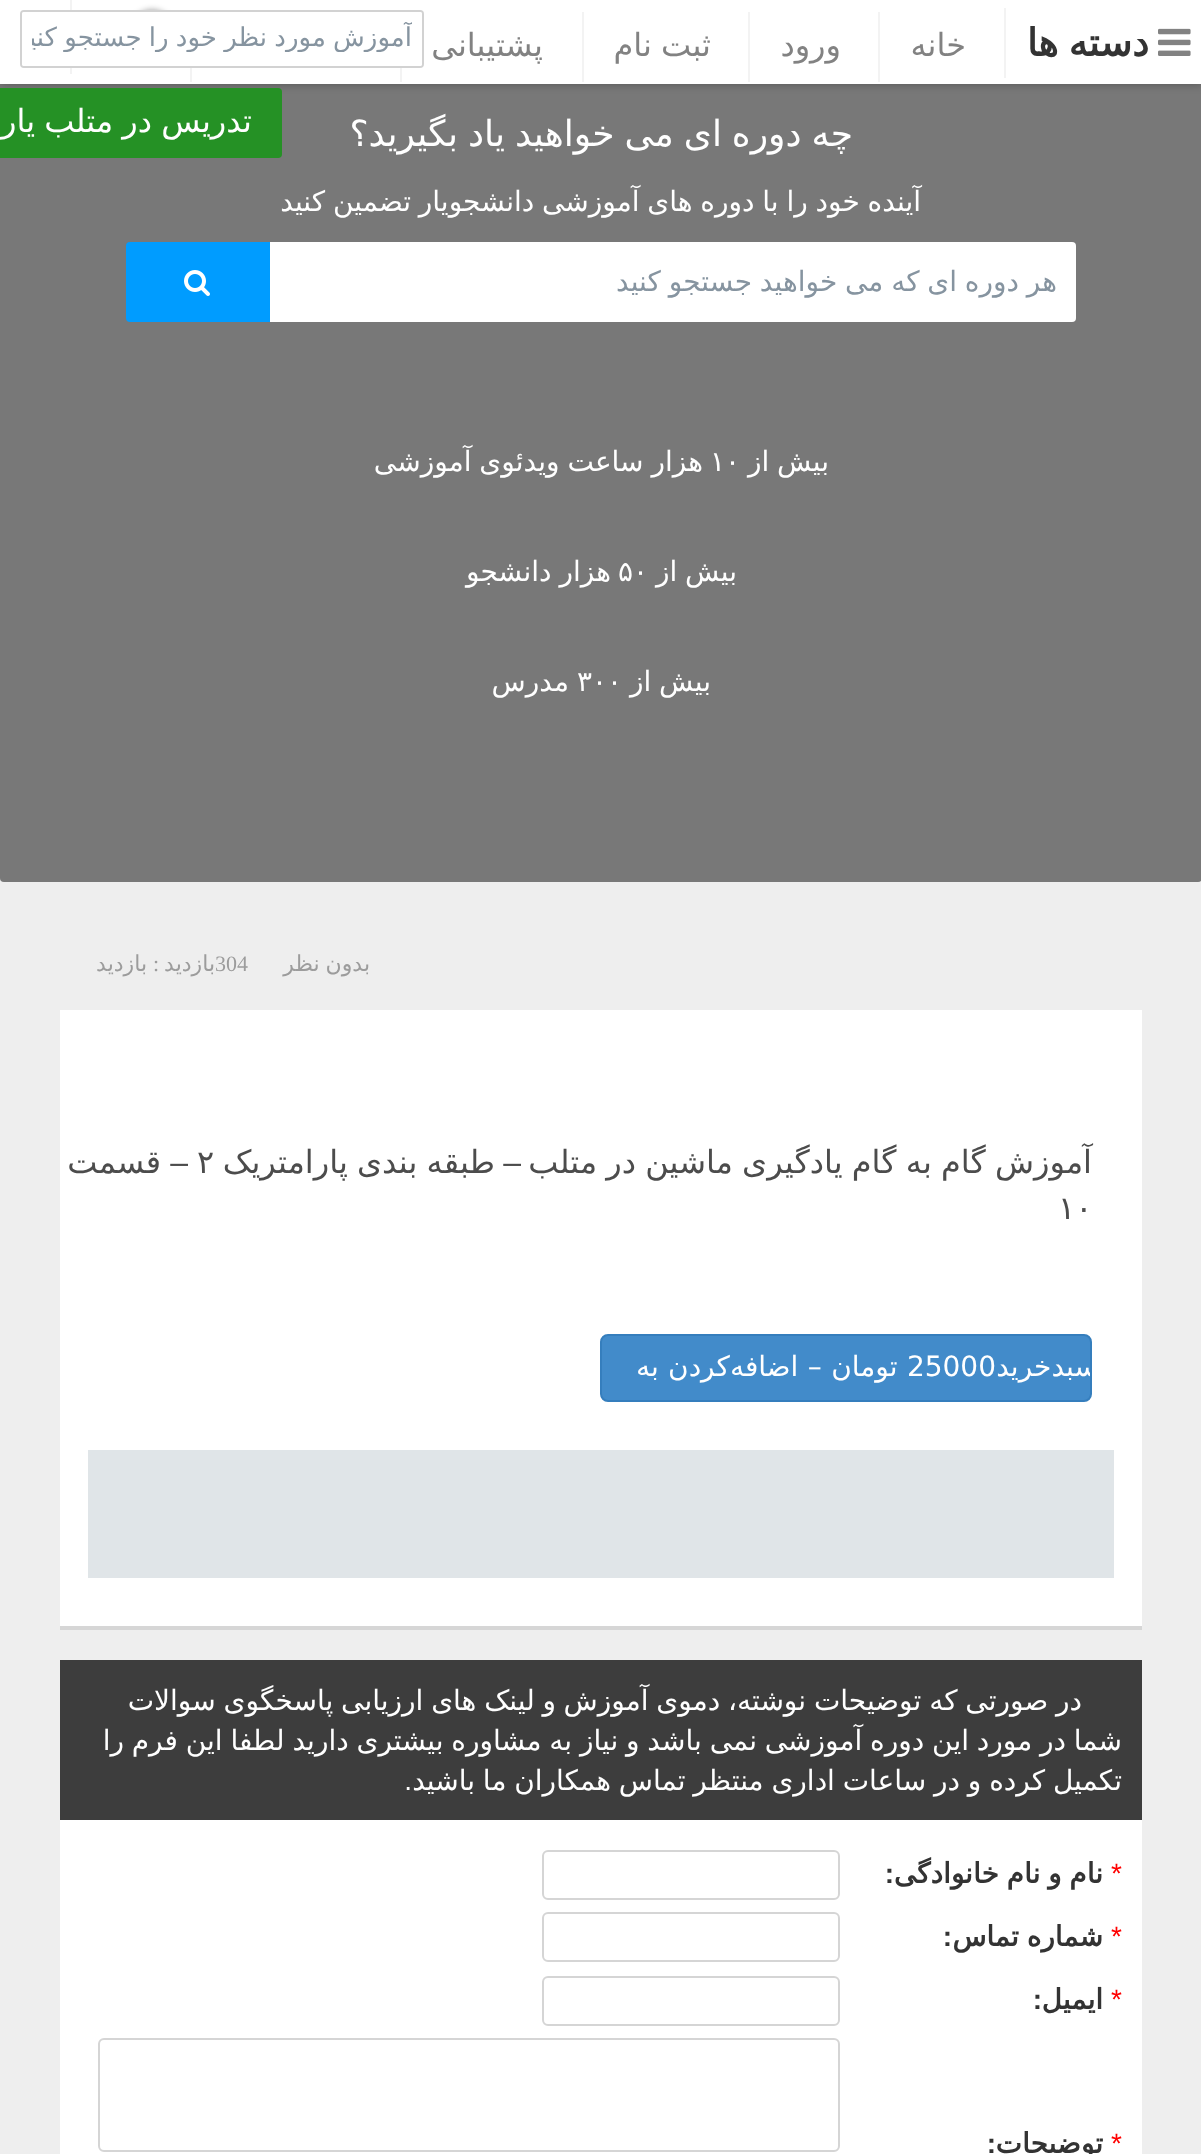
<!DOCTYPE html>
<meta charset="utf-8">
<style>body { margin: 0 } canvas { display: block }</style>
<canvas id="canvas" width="1201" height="2154"></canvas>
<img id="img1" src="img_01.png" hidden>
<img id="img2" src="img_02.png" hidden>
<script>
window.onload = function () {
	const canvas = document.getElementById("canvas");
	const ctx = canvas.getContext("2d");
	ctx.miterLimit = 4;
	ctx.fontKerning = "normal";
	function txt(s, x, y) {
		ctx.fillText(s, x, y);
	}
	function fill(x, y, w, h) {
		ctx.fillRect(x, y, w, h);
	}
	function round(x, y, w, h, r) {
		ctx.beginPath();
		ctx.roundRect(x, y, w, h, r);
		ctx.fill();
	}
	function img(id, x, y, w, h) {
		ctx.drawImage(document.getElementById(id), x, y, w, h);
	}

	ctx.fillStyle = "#EEEEEE";
	fill(0, 0, 1201, 2154);
	ctx.fillStyle = "#787878";
	round(0, 0, 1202, 882, 4);
	ctx.fillStyle = "rgba(0, 0, 0, 0.3)";
	ctx.filter = "blur(5px)";
	ctx.beginPath();
	ctx.rect(0, 0, 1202, 84);
	ctx.fill();
	ctx.filter = "none";
	ctx.fillStyle = "#FFFFFF";
	fill(0, 0, 1201, 84);
	ctx.fillStyle = "#F3F3F3";
	fill(70, 0, 2, 74);
	ctx.fillStyle = "rgba(0, 0, 0, 0.4)";
	ctx.filter = "blur(3px)";
	ctx.beginPath();
	ctx.roundRect(132, 10, 40, 40, 20);
	ctx.fill();
	ctx.filter = "none";
	ctx.beginPath();
	ctx.roundRect(21, 11, 402, 56, 3);
	ctx.strokeStyle = "#D2D2D2";
	ctx.lineWidth = 2;
	ctx.stroke();
	ctx.fillStyle = "#FFFFFF";
	round(22, 12, 400, 54, 2);
	ctx.fillStyle = "#F3F3F3";
	fill(1004, 8, 2, 70);
	img("img1", 1158, 28, 33, 28);
	fill(878, 12, 2, 70);
	fill(748, 12, 2, 70);
	fill(582, 12, 2, 70);
	fill(400, 68, 2, 14);
	fill(190, 68, 2, 14);
	ctx.fillStyle = "#259125";
	round(-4, 88, 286, 70, 4);
	ctx.fillStyle = "#FFFFFF";
	ctx.beginPath();
	ctx.roundRect(164, 242, 912, 80, [0, 4, 4, 0]);
	ctx.fill();
	ctx.fillStyle = "#009CFF";
	ctx.beginPath();
	ctx.roundRect(126, 242, 144, 80, [4, 0, 0, 4]);
	ctx.fill();
	img("img2", 184, 270, 26, 26);
	ctx.fillStyle = "#FFFFFF";
	fill(60, 1010, 1082, 616);
	ctx.fillStyle = "#D6D6D6";
	fill(60, 1626, 1082, 4);
	ctx.fillStyle = "#428BCA";
	ctx.beginPath();
	ctx.roundRect(601, 1335, 490, 66, 7);
	ctx.fill();
	ctx.strokeStyle = "#357EBD";
	ctx.stroke();
	ctx.fillStyle = "#E0E5E8";
	fill(88, 1450, 1026, 128);
	ctx.fillStyle = "#FFFFFF";
	fill(60, 1820, 1082, 334);
	ctx.fillStyle = "#3D3D3D";
	fill(60, 1660, 1082, 160);
	ctx.beginPath();
	ctx.roundRect(543, 1851, 296, 48, 5);
	ctx.strokeStyle = "#D5D5D5";
	ctx.stroke();
	ctx.beginPath();
	ctx.roundRect(543, 1913, 296, 48, 5);
	ctx.stroke();
	ctx.beginPath();
	ctx.roundRect(543, 1977, 296, 48, 5);
	ctx.stroke();
	ctx.beginPath();
	ctx.roundRect(99, 2039, 740, 112, 5);
	ctx.stroke();
	ctx.save();
	ctx.beginPath();
	ctx.rect(32, 22, 380, 30);
	ctx.clip();
	ctx.wordSpacing = "-1px";
	ctx.direction = "rtl";
	ctx.font = "26px DejaVu Sans";
	ctx.fillStyle = "#8694A0";
	txt("آموزش مورد نظر خود را جستجو کنید", 412, 46);
	ctx.restore();
	ctx.wordSpacing = "-2px";
	ctx.direction = "rtl";
	ctx.font = "bold 38px DejaVu Sans";
	ctx.fillStyle = "#333333";
	txt("دسته ها", 1149, 56);
	ctx.wordSpacing = "0px";
	ctx.font = "32px DejaVu Sans";
	ctx.fillStyle = "#828282";
	txt("خانه", 966, 56);
	txt("ورود", 841, 56);
	ctx.wordSpacing = "-1px";
	txt("ثبت نام", 711, 56);
	ctx.wordSpacing = "0px";
	txt("پشتیبانی", 543, 56);
	ctx.wordSpacing = "-1px";
	ctx.fillStyle = "#FFFFFF";
	txt("تدریس در متلب یار", 252, 132);
	ctx.wordSpacing = "-1.5px";
	ctx.font = "36px DejaVu Sans";
	txt("چه دوره ای می خواهید یاد بگیرید؟", 853, 146);
	ctx.wordSpacing = "-1.1px";
	ctx.font = "28px DejaVu Sans";
	txt("آینده خود را با دوره های آموزشی دانشجویار تضمین کنید", 921, 211);
	ctx.save();
	ctx.beginPath();
	ctx.rect(184, 266, 872, 32);
	ctx.clip();
	ctx.fillStyle = "#8694A0";
	txt("هر دوره ای که می خواهید جستجو کنید", 1057, 291);
	ctx.restore();
	txt("بیش از", 829, 471);
	ctx.wordSpacing = "0px";
	ctx.direction = "ltr";
	txt("۱۰", 710, 471);
	ctx.wordSpacing = "-1px";
	ctx.direction = "rtl";
	txt("هزار ساعت ویدئوی آموزشی", 703, 471);
	ctx.wordSpacing = "-1.1px";
	txt("بیش از", 737, 581);
	ctx.wordSpacing = "0px";
	ctx.direction = "ltr";
	txt("۵۰", 618, 581);
	ctx.wordSpacing = "-1px";
	ctx.direction = "rtl";
	txt("هزار دانشجو", 611, 581);
	ctx.wordSpacing = "-1.1px";
	txt("بیش از", 711, 691);
	ctx.wordSpacing = "0px";
	ctx.direction = "ltr";
	txt("۳۰۰", 577, 691);
	ctx.direction = "rtl";
	txt("مدرس", 569, 691);
	ctx.wordSpacing = "-1px";
	ctx.font = "22px DejaVu Sans";
	ctx.fillStyle = "#9C9C9C";
	txt("بدون نظر", 370, 971);
	ctx.wordSpacing = "0px";
	ctx.direction = "ltr";
	ctx.font = "22px Liberation Serif";
	txt("304", 215, 971);
	ctx.direction = "rtl";
	ctx.font = "22px DejaVu Sans";
	txt("بازدید", 215, 971);
	ctx.font = "22px Liberation Serif";
	txt(":", 159, 971);
	ctx.font = "22px DejaVu Sans";
	txt("بازدید", 147, 971);
	ctx.wordSpacing = "-1px";
	ctx.font = "32px DejaVu Sans";
	ctx.fillStyle = "#4C4C4C";
	txt("آموزش گام به گام یادگیری ماشین در متلب", 1092, 1173);
	ctx.wordSpacing = "0px";
	ctx.font = "32px Liberation Sans";
	txt("–", 521, 1173);
	ctx.wordSpacing = "-1px";
	ctx.font = "32px DejaVu Sans";
	txt("طبقه بندی پارامتریک", 495, 1173);
	ctx.wordSpacing = "0px";
	ctx.direction = "ltr";
	txt("۲", 197, 1173);
	ctx.direction = "rtl";
	ctx.font = "32px Liberation Sans";
	txt("–", 188, 1173);
	ctx.font = "32px DejaVu Sans";
	txt("قسمت", 161, 1173);
	ctx.direction = "ltr";
	txt("۱۰", 1058, 1219);
	ctx.save();
	ctx.beginPath();
	ctx.roundRect(602, 1336, 488, 64, 6);
	ctx.clip();
	ctx.direction = "rtl";
	ctx.font = "28px DejaVu Sans";
	ctx.fillStyle = "#FFFFFF";
	txt("سبدخرید", 1098, 1376);
	ctx.restore();
	ctx.wordSpacing = "0.5px";
	ctx.direction = "rtl";
	ctx.font = "28px DejaVu Sans";
	ctx.fillStyle = "#FFFFFF";
	txt("25000 تومان – اضافه‌کردن به", 996, 1376);
	ctx.wordSpacing = "-1.1px";
	txt("در صورتی که توضیحات نوشته، دموی آموزش", 1082, 1710);
	txt("و لینک های ارزیابی پاسخگوی سوالات", 556, 1710);
	txt("شما در مورد این دوره آموزشی نمی باشد و نیاز به مشاوره بیشتری دارید لطفا این فرم را", 1122, 1750);
	txt("تکمیل کرده و در ساعات اداری منتظر تماس همکاران ما باشید", 1122, 1790);
	ctx.wordSpacing = "0px";
	ctx.font = "28px Liberation Sans";
	txt(".", 412, 1790);
	ctx.direction = "ltr";
	ctx.fillStyle = "#FF0000";
	txt("*", 1111, 1883);
	ctx.wordSpacing = "-1.1px";
	ctx.direction = "rtl";
	ctx.font = "bold 28px DejaVu Sans";
	ctx.fillStyle = "#333333";
	txt("نام و نام خانوادگی", 1103, 1883);
	ctx.wordSpacing = "0px";
	ctx.font = "bold 28px Liberation Sans";
	txt(":", 894, 1883);
	ctx.direction = "ltr";
	ctx.font = "28px Liberation Sans";
	ctx.fillStyle = "#FF0000";
	txt("*", 1111, 1946);
	ctx.wordSpacing = "-1.1px";
	ctx.direction = "rtl";
	ctx.font = "bold 28px DejaVu Sans";
	ctx.fillStyle = "#333333";
	txt("شماره تماس", 1103, 1946);
	ctx.wordSpacing = "0px";
	ctx.font = "bold 28px Liberation Sans";
	txt(":", 952, 1946);
	ctx.direction = "ltr";
	ctx.font = "28px Liberation Sans";
	ctx.fillStyle = "#FF0000";
	txt("*", 1111, 2009);
	ctx.direction = "rtl";
	ctx.font = "bold 28px DejaVu Sans";
	ctx.fillStyle = "#333333";
	txt("ایمیل", 1103, 2009);
	ctx.font = "bold 28px Liberation Sans";
	txt(":", 1042, 2009);
	ctx.direction = "ltr";
	ctx.font = "28px Liberation Sans";
	ctx.fillStyle = "#FF0000";
	txt("*", 1111, 2153);
	ctx.direction = "rtl";
	ctx.font = "bold 28px DejaVu Sans";
	ctx.fillStyle = "#333333";
	txt("توضیحات", 1103, 2153);
	ctx.font = "bold 28px Liberation Sans";
	txt(":", 996, 2153);
};
</script>
